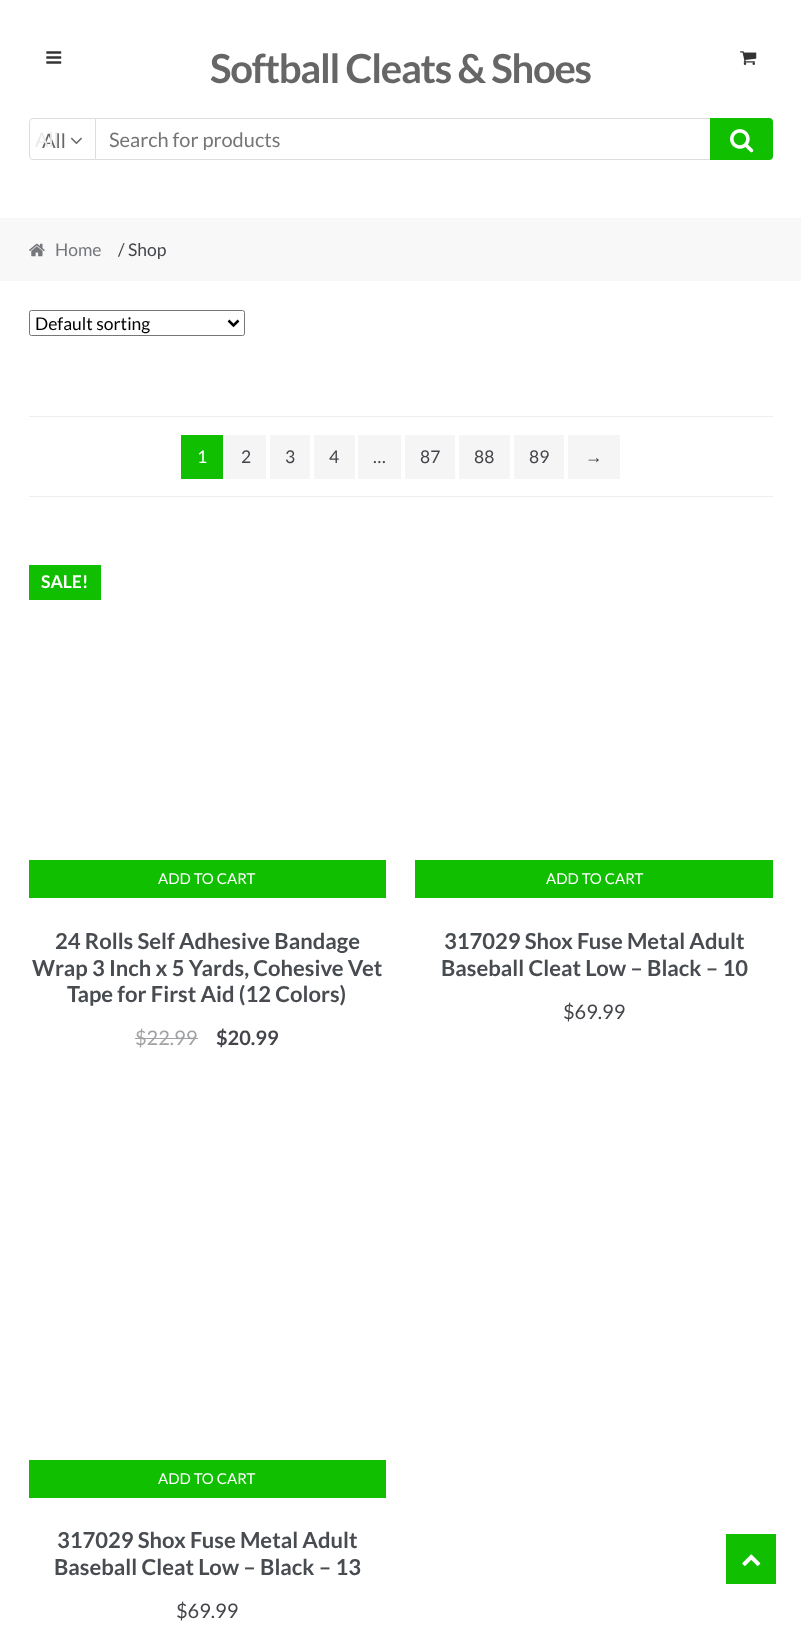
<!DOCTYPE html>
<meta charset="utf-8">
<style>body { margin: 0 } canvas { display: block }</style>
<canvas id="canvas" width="801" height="1633"></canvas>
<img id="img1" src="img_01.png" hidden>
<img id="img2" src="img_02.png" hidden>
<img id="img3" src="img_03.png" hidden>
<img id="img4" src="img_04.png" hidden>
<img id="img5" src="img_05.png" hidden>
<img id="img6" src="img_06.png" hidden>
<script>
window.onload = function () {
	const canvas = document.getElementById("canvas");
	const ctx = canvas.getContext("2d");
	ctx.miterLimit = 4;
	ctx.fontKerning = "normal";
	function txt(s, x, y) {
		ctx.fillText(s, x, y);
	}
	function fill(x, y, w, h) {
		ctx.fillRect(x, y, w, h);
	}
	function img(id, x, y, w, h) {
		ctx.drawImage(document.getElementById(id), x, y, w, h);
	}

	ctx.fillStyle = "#FFFFFF";
	fill(0, 0, 801, 1633);
	ctx.fillStyle = "#F5F5F5";
	fill(0, 218, 801, 1);
	img("img1", 46, 51, 16, 13);
	img("img2", 740, 51, 17, 14);
	ctx.beginPath();
	ctx.roundRect(29.5, 118.5, 66, 41, [3.5, 0, 0, 3.5]);
	ctx.strokeStyle = "#DDDDDD";
	ctx.stroke();
	img("img3", 70, 137, 12, 8);
	ctx.fillStyle = "#DDDDDD";
	fill(96, 118, 614, 1);
	fill(96, 159, 614, 1);
	ctx.fillStyle = "#0FBF00";
	ctx.beginPath();
	ctx.roundRect(710, 118, 63, 42, [0, 4, 4, 0]);
	ctx.fill();
	img("img4", 730, 129, 24, 24);
	ctx.fillStyle = "#F8F8F8";
	fill(0, 219, 801, 62);
	img("img5", 29, 243, 16, 14);
	ctx.beginPath();
	ctx.roundRect(29.5, 310.5, 215, 25, 2);
	ctx.strokeStyle = "#767676";
	ctx.stroke();
	ctx.beginPath();
	ctx.moveTo(228.5, 320.5);
	ctx.lineTo(233.5, 325.5);
	ctx.lineTo(238.5, 320.5);
	ctx.strokeStyle = "#000000";
	ctx.lineWidth = 2.5;
	ctx.stroke();
	ctx.fillStyle = "#EEEEEE";
	fill(29, 416, 744, 1);
	fill(29, 496, 744, 1);
	ctx.fillStyle = "#0FBF00";
	fill(181, 435, 42, 44);
	ctx.fillStyle = "#F5F5F5";
	fill(225, 435, 41, 44);
	fill(270, 435, 40, 44);
	fill(314, 435, 41, 44);
	fill(358, 435, 43, 44);
	fill(405, 435, 50, 44);
	fill(459, 435, 51, 44);
	fill(514, 435, 50, 44);
	fill(568, 435, 52, 44);
	ctx.fillStyle = "#0FBF00";
	fill(29, 565, 72, 35);
	ctx.fillStyle = "#A1A2A5";
	fill(135, 1038, 63, 1);
	ctx.fillStyle = "#0FBF00";
	fill(29, 860, 357, 38);
	fill(415, 860, 358, 38);
	fill(29, 1460, 357, 38);
	fill(726, 1534, 50, 50);
	img("img6", 742, 1554, 19, 12);
	ctx.letterSpacing = "-1.25px";
	ctx.font = "bold 40px Lato";
	ctx.fillStyle = "#666666";
	txt("Softball Cleats & Shoes", 210, 83);
	ctx.letterSpacing = "0px";
	ctx.font = "20px Lato";
	txt("All", 42, 148);
	ctx.fillStyle = "#E9E9E9";
	txt("All", 35, 147);
	ctx.save();
	ctx.beginPath();
	ctx.rect(109, 126, 589, 24);
	ctx.clip();
	ctx.fillStyle = "#757575";
	txt("Search for products", 109, 147);
	ctx.restore();
	ctx.font = "17.5px Lato";
	ctx.fillStyle = "#75777D";
	txt("Home", 55, 256);
	ctx.fillStyle = "#43454B";
	txt("/ Shop", 118, 256);
	ctx.fillStyle = "#000000";
	txt("Default sorting", 35, 330);
	ctx.fillStyle = "#FFFFFF";
	txt("1", 197, 463);
	ctx.fillStyle = "#43454B";
	txt("2", 241, 463);
	txt("3", 285, 463);
	txt("4", 329, 463);
	txt("…", 373, 463);
	txt("87", 420, 463);
	txt("88", 474, 463);
	txt("89", 529, 463);
	ctx.font = "17.5px Liberation Sans";
	txt("→", 585, 463);
	ctx.font = "bold 17.5px Lato";
	ctx.fillStyle = "#FFFFFF";
	txt("SALE!", 41, 588);
	ctx.font = "bold 22px Lato";
	ctx.fillStyle = "#484C51";
	txt("24 Rolls Self Adhesive Bandage", 55, 949);
	txt("Wrap 3 Inch x 5 Yards, Cohesive Vet", 32, 976);
	txt("Tape for First Aid (12 Colors)", 67, 1002);
	ctx.font = "20px Lato";
	ctx.fillStyle = "#A1A2A5";
	txt("$22.99", 135, 1045);
	ctx.font = "bold 20px Lato";
	ctx.fillStyle = "#43454B";
	txt("$20.99", 216, 1045);
	ctx.font = "15px Lato";
	ctx.fillStyle = "#FFFFFF";
	txt("ADD TO CART", 158, 884);
	txt("ADD TO CART", 546, 884);
	ctx.font = "bold 22px Lato";
	ctx.fillStyle = "#484C51";
	txt("317029 Shox Fuse Metal Adult", 444, 949);
	txt("Baseball Cleat Low – Black – 10", 441, 976);
	ctx.font = "20px Lato";
	ctx.fillStyle = "#43454B";
	txt("$69.99", 563, 1019);
	ctx.font = "15px Lato";
	ctx.fillStyle = "#FFFFFF";
	txt("ADD TO CART", 158, 1484);
	ctx.font = "bold 22px Lato";
	ctx.fillStyle = "#484C51";
	txt("317029 Shox Fuse Metal Adult", 57, 1548);
	txt("Baseball Cleat Low – Black – 13", 54, 1575);
	ctx.font = "20px Lato";
	ctx.fillStyle = "#43454B";
	txt("$69.99", 176, 1618);
};
</script>
